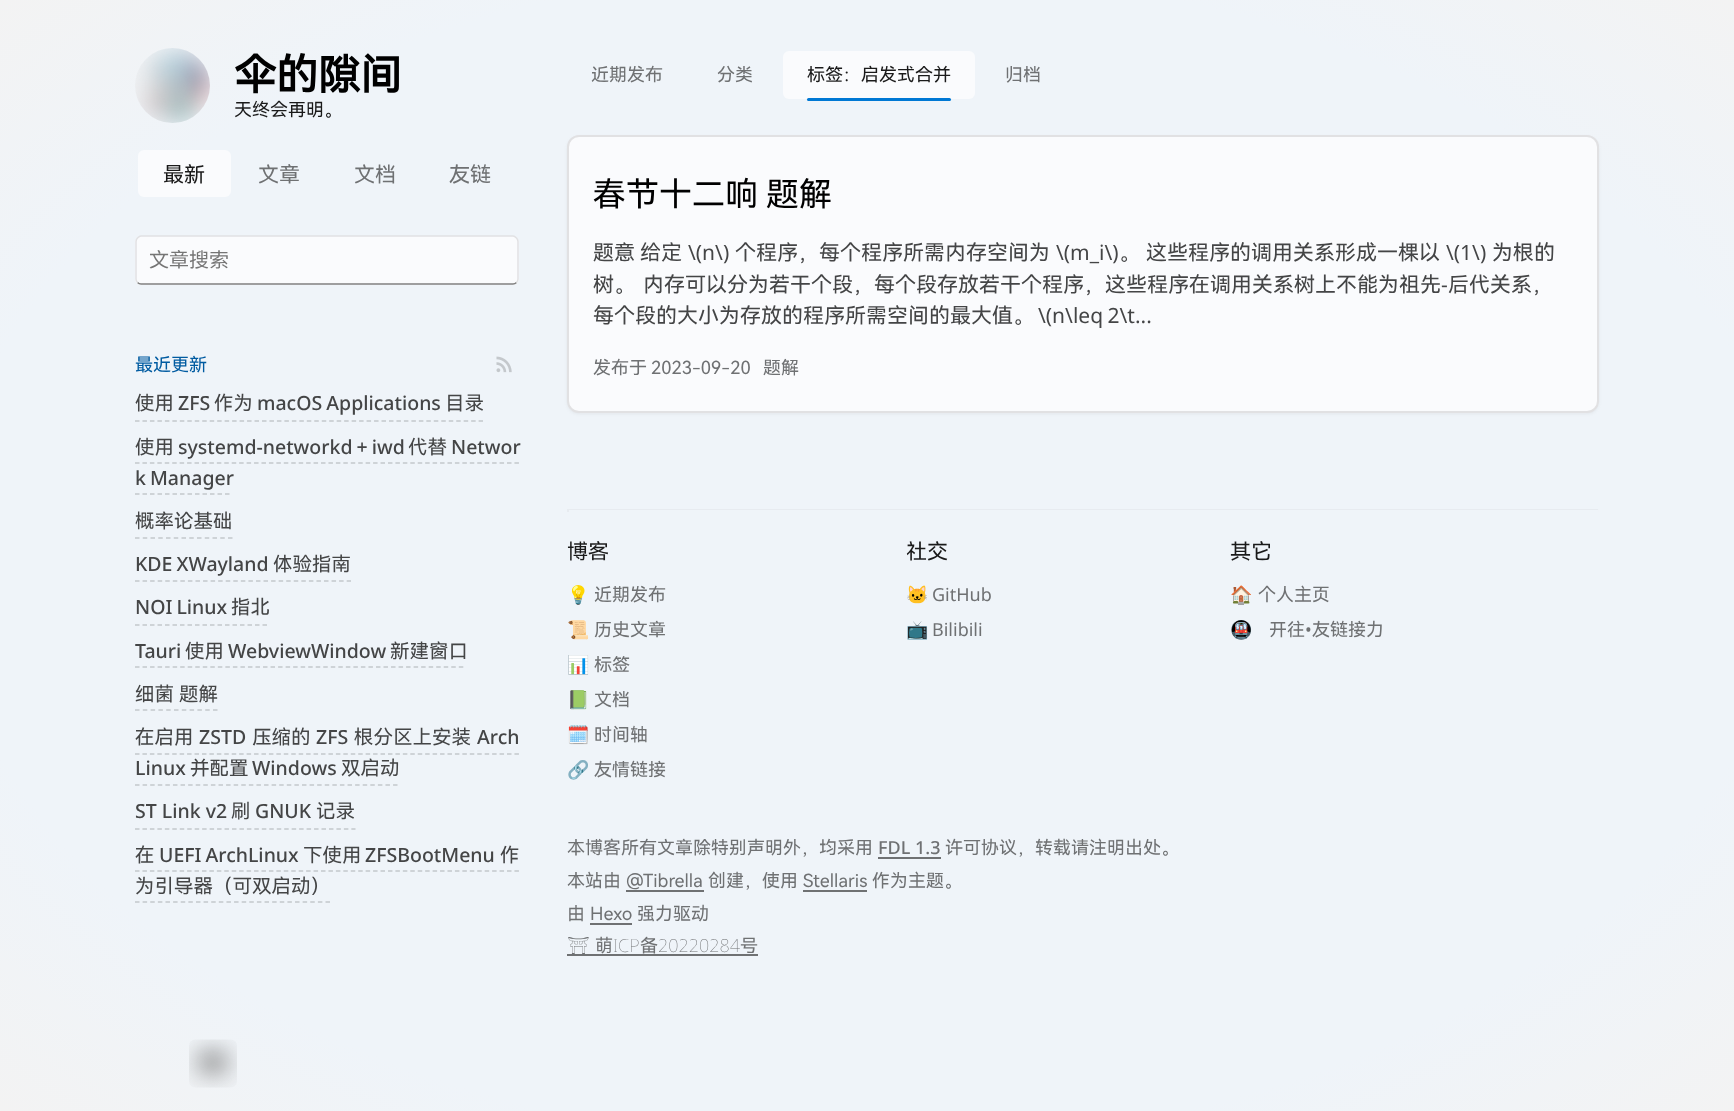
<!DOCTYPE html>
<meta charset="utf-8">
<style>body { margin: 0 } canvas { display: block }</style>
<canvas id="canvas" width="1734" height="1111"></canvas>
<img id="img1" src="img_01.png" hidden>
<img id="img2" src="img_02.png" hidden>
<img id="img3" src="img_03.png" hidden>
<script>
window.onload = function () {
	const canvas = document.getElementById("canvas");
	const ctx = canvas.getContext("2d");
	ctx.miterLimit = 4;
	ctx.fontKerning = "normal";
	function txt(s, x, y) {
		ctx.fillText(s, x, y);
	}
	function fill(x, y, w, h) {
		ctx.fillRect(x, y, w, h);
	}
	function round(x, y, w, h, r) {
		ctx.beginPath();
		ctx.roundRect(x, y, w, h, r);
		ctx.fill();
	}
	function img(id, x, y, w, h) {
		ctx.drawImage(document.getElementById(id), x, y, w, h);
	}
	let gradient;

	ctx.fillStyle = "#FFFFFF";
	fill(0, 0, 1734, 1111);
	gradient = ctx.createRadialGradient(867, 867.25, 0, 867, 867.25, 1226);
	gradient.addColorStop(0.75, "#EFF4F9");
	gradient.addColorStop(1, "#F3F3F3");
	ctx.fillStyle = gradient;
	ctx.beginPath();
	ctx.rect(0, 0, 1734, 1111);
	ctx.save();
	ctx.clip();
	ctx.scale(1, 786 / 1226);
	ctx.fillRect(0, 0, 1734, 1733);
	ctx.restore();
	img("img1", 135, 48, 75, 75);
	ctx.fillStyle = "#FAFBFD";
	round(138, 150, 93, 47, 6);
	round(135, 236, 384, 49, 6);
	ctx.beginPath();
	ctx.moveTo(516.5, 282.5);
	ctx.bezierCurveTo(515.5, 283.5, 514.5, 284, 513, 284);
	ctx.lineTo(141, 284);
	ctx.bezierCurveTo(139.5, 284, 138.5, 283.5, 137.5, 282.5);
	ctx.strokeStyle = "#808080";
	ctx.lineWidth = 1.5;
	ctx.stroke();
	ctx.beginPath();
	ctx.moveTo(137.5, 282.5);
	ctx.bezierCurveTo(136.5, 281.5, 136, 280.5, 136, 279);
	ctx.lineTo(136, 241.5);
	ctx.bezierCurveTo(136, 240, 136.5, 239, 137.5, 238);
	ctx.bezierCurveTo(138.5, 237, 139.5, 236, 141, 236);
	ctx.lineTo(513, 236);
	ctx.bezierCurveTo(514.5, 236, 515.5, 237, 516.5, 238);
	ctx.bezierCurveTo(517.5, 239, 518, 240, 518, 241.5);
	ctx.lineTo(518, 279);
	ctx.bezierCurveTo(518, 280.5, 517.5, 281.5, 516.5, 282.5);
	ctx.strokeStyle = "#E1E1E3";
	ctx.stroke();
	img("img2", 496, 356, 16, 17);
	ctx.beginPath();
	ctx.moveTo(135, 421);
	ctx.lineTo(483, 421);
	ctx.strokeStyle = "#C4C8CC";
	ctx.setLineDash([4.5, 2.97]);
	ctx.stroke();
	ctx.beginPath();
	ctx.moveTo(135, 463);
	ctx.lineTo(519, 463);
	ctx.setLineDash([4.5, 2.94]);
	ctx.stroke();
	ctx.beginPath();
	ctx.moveTo(135, 494);
	ctx.lineTo(229.5, 494);
	ctx.setLineDash([4.5, 3]);
	ctx.stroke();
	ctx.beginPath();
	ctx.moveTo(135, 538);
	ctx.lineTo(232.5, 538);
	ctx.setLineDash([4.5, 3.25]);
	ctx.stroke();
	ctx.beginPath();
	ctx.moveTo(135, 581);
	ctx.lineTo(351, 581);
	ctx.setLineDash([4.5, 3.06]);
	ctx.stroke();
	ctx.beginPath();
	ctx.moveTo(135, 625);
	ctx.lineTo(267, 625);
	ctx.setLineDash([4.5, 3]);
	ctx.stroke();
	ctx.beginPath();
	ctx.moveTo(135, 667);
	ctx.lineTo(463.5, 667);
	ctx.setLineDash([4.5, 3.03]);
	ctx.stroke();
	ctx.beginPath();
	ctx.moveTo(135, 710);
	ctx.lineTo(217.5, 710);
	ctx.setLineDash([4.5, 3.3]);
	ctx.stroke();
	ctx.beginPath();
	ctx.moveTo(135, 785);
	ctx.lineTo(397.5, 785);
	ctx.setLineDash([4.5, 3.09]);
	ctx.stroke();
	ctx.beginPath();
	ctx.moveTo(135, 754);
	ctx.lineTo(519, 754);
	ctx.setLineDash([4.5, 2.94]);
	ctx.stroke();
	ctx.beginPath();
	ctx.moveTo(135, 829);
	ctx.lineTo(355.5, 829);
	ctx.setLineDash([4.5, 2.96]);
	ctx.stroke();
	ctx.beginPath();
	ctx.moveTo(135, 871);
	ctx.lineTo(519, 871);
	ctx.setLineDash([4.5, 2.94]);
	ctx.stroke();
	ctx.beginPath();
	ctx.moveTo(135, 902);
	ctx.lineTo(330, 902);
	ctx.setLineDash([4.5, 3.12]);
	ctx.stroke();
	img("img3", 189, 1039, 48, 49);
	round(783, 51, 192, 48, 6);
	ctx.fillStyle = "#0078D4";
	round(807, 98, 144, 3, 1.5);
	ctx.fillStyle = "rgba(113, 113, 122, 0.1)";
	ctx.filter = "blur(1.5px)";
	ctx.beginPath();
	ctx.roundRect(567, 137, 1032, 277, 12);
	ctx.fill();
	ctx.filter = "none";
	ctx.fillStyle = "#FAFBFD";
	ctx.beginPath();
	ctx.roundRect(568, 136, 1030, 276, 11);
	ctx.fill();
	ctx.strokeStyle = "#E1E1E3";
	ctx.lineWidth = 2;
	ctx.setLineDash([]);
	ctx.stroke();
	ctx.fillStyle = "#E7EBF0";
	fill(567, 509, 1032, 1);
	ctx.fillStyle = "#EFF3F8";
	fill(1598, 509, 1, 3);
	ctx.fillStyle = "#E7EBF0";
	fill(567, 509, 2, 3);
	ctx.fillStyle = "#6F7173";
	fill(878, 857, 63, 2);
	fill(626, 890, 78, 2);
	fill(803, 890, 64, 2);
	fill(590, 923, 42, 2);
	fill(567, 954, 191, 2);
	ctx.font = "bold 42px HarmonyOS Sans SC";
	ctx.fillStyle = "#000000";
	txt("伞的隙间", 234, 90);
	ctx.font = "18px HarmonyOS Sans SC";
	ctx.fillStyle = "#1A1A1A";
	txt("天终会再明。", 234, 116);
	ctx.font = "21px HarmonyOS Sans SC";
	txt("最新", 163, 182);
	ctx.fillStyle = "#6F7173";
	txt("文章", 258, 182);
	txt("文档", 354, 182);
	txt("友链", 449, 182);
	ctx.font = "20px Noto Sans CJK SC";
	ctx.fillStyle = "#757575";
	txt("文章搜索", 149, 267);
	ctx.font = "18px HarmonyOS Sans SC";
	ctx.fillStyle = "#005BA1";
	txt("最近更新", 135, 371);
	ctx.font = "19.5px HarmonyOS Sans SC";
	ctx.fillStyle = "#444546";
	txt("使用", 135, 410);
	ctx.font = "500 19.5px Noto Sans";
	txt("ZFS", 178, 410);
	ctx.font = "19.5px HarmonyOS Sans SC";
	txt("作为", 214, 410);
	ctx.wordSpacing = "-1px";
	ctx.font = "500 19.5px Noto Sans";
	txt("macOS Applications", 257, 410);
	ctx.wordSpacing = "0px";
	ctx.font = "19.5px HarmonyOS Sans SC";
	txt("目录", 445, 410);
	txt("使用", 135, 454);
	ctx.wordSpacing = "-1px";
	ctx.font = "500 19.5px Noto Sans";
	txt("systemd-networkd + iwd", 178, 454);
	ctx.wordSpacing = "0px";
	ctx.font = "19.5px HarmonyOS Sans SC";
	txt("代替", 408, 454);
	ctx.font = "500 19.5px Noto Sans";
	txt("Networ", 451, 454);
	ctx.wordSpacing = "-1px";
	txt("k Manager", 135, 485);
	ctx.wordSpacing = "0px";
	ctx.font = "19.5px HarmonyOS Sans SC";
	txt("概率论基础", 135, 528);
	ctx.wordSpacing = "-1px";
	ctx.font = "500 19.5px Noto Sans";
	txt("KDE XWayland", 135, 571);
	ctx.wordSpacing = "0px";
	ctx.font = "19.5px HarmonyOS Sans SC";
	txt("体验指南", 273, 571);
	ctx.wordSpacing = "-1px";
	ctx.font = "500 19.5px Noto Sans";
	txt("NOI Linux", 135, 614);
	ctx.wordSpacing = "0px";
	ctx.font = "19.5px HarmonyOS Sans SC";
	txt("指北", 231, 614);
	ctx.font = "500 19.5px Noto Sans";
	txt("Tauri", 135, 658);
	ctx.font = "19.5px HarmonyOS Sans SC";
	txt("使用", 185, 658);
	ctx.font = "500 19.5px Noto Sans";
	txt("WebviewWindow", 228, 658);
	ctx.font = "19.5px HarmonyOS Sans SC";
	txt("新建窗口", 390, 658);
	txt("细菌", 135, 701);
	txt("题解", 179, 701);
	txt("在启用", 135, 744);
	ctx.font = "500 19.5px Noto Sans";
	txt("ZSTD", 199, 744);
	ctx.font = "19.5px HarmonyOS Sans SC";
	txt("压缩的", 252, 744);
	ctx.font = "500 19.5px Noto Sans";
	txt("ZFS", 316, 744);
	ctx.font = "19.5px HarmonyOS Sans SC";
	txt("根分区上安装", 354, 744);
	ctx.font = "500 19.5px Noto Sans";
	txt("Arch", 477, 744);
	txt("Linux", 135, 775);
	ctx.font = "19.5px HarmonyOS Sans SC";
	txt("并配置", 190, 775);
	ctx.font = "500 19.5px Noto Sans";
	txt("Windows", 252, 775);
	ctx.font = "19.5px HarmonyOS Sans SC";
	txt("双启动", 341, 775);
	ctx.font = "500 19.5px Noto Sans";
	txt("ST Link v2", 135, 818);
	ctx.font = "19.5px HarmonyOS Sans SC";
	txt("刷", 231, 818);
	ctx.font = "500 19.5px Noto Sans";
	txt("GNUK", 255, 818);
	ctx.font = "19.5px HarmonyOS Sans SC";
	txt("记录", 316, 818);
	txt("在", 135, 862);
	ctx.wordSpacing = "-1px";
	ctx.font = "500 19.5px Noto Sans";
	txt("UEFI ArchLinux", 159, 862);
	ctx.wordSpacing = "0px";
	ctx.font = "19.5px HarmonyOS Sans SC";
	txt("下使用", 303, 862);
	ctx.font = "500 19.5px Noto Sans";
	txt("ZFSBootMenu", 365, 862);
	ctx.font = "19.5px HarmonyOS Sans SC";
	txt("作", 500, 862);
	txt("为引导器（可双启动）", 135, 893);
	ctx.font = "18px HarmonyOS Sans SC";
	ctx.fillStyle = "#6F7173";
	txt("近期发布", 591, 81);
	txt("分类", 717, 81);
	ctx.fillStyle = "#1A1A1A";
	txt("标签：启发式合并", 807, 81);
	ctx.fillStyle = "#6F7173";
	txt("归档", 1005, 81);
	ctx.font = "33px HarmonyOS Sans SC";
	ctx.fillStyle = "#000000";
	txt("春节十二响", 593, 206);
	txt("题解", 766, 206);
	ctx.font = "21px HarmonyOS Sans SC";
	ctx.fillStyle = "#444546";
	txt("题意", 593, 260);
	txt("给定", 640, 260);
	ctx.font = "21px Noto Sans";
	txt("\\(n\\)", 688, 260);
	ctx.font = "21px HarmonyOS Sans SC";
	txt("个程序，每个程序所需内存空间为", 735, 260);
	ctx.font = "21px Noto Sans";
	txt("\\(m_i\\)", 1056, 260);
	ctx.font = "21px HarmonyOS Sans SC";
	txt("。", 1119, 260);
	txt("这些程序的调用关系形成一棵以", 1146, 260);
	ctx.font = "21px Noto Sans";
	txt("\\(1\\)", 1446, 260);
	ctx.font = "21px HarmonyOS Sans SC";
	txt("为根的", 1492, 260);
	txt("树。", 593, 292);
	txt("内存可以分为若干个段，每个段存放若干个程序，这些程序在调用关系树上不能为祖先", 643, 292);
	ctx.font = "21px Noto Sans";
	txt("-", 1441, 292);
	ctx.font = "21px HarmonyOS Sans SC";
	txt("后代关系，", 1448, 292);
	txt("每个段的大小为存放的程序所需空间的最大值。", 593, 323);
	ctx.wordSpacing = "-1px";
	ctx.font = "21px Noto Sans";
	txt("\\(n\\leq 2\\t...", 1038, 323);
	ctx.wordSpacing = "0px";
	ctx.font = "18px HarmonyOS Sans SC";
	ctx.fillStyle = "#6F7173";
	txt("发布于", 593, 374);
	txt("2023-09-20", 651, 374);
	txt("题解", 763, 374);
	ctx.font = "21px HarmonyOS Sans SC";
	ctx.fillStyle = "#1A1A1A";
	txt("博客", 567, 559);
	ctx.font = "18px Noto Color Emoji";
	ctx.fillStyle = "#6F7173";
	txt("💡", 567, 601);
	ctx.font = "18px HarmonyOS Sans SC";
	txt("近期发布", 594, 601);
	ctx.font = "18px Noto Color Emoji";
	txt("📜", 567, 636);
	ctx.font = "18px HarmonyOS Sans SC";
	txt("历史文章", 594, 636);
	ctx.font = "18px Noto Color Emoji";
	txt("📊", 567, 671);
	ctx.font = "18px HarmonyOS Sans SC";
	txt("标签", 594, 671);
	ctx.font = "18px Noto Color Emoji";
	txt("📗", 567, 706);
	ctx.font = "18px HarmonyOS Sans SC";
	txt("文档", 594, 706);
	ctx.font = "18px Noto Color Emoji";
	txt("🗓️", 567, 741);
	ctx.font = "18px HarmonyOS Sans SC";
	txt("时间轴", 594, 741);
	ctx.font = "18px Noto Color Emoji";
	txt("🔗", 567, 776);
	ctx.font = "18px HarmonyOS Sans SC";
	txt("友情链接", 594, 776);
	ctx.font = "21px HarmonyOS Sans SC";
	ctx.fillStyle = "#1A1A1A";
	txt("社交", 906, 559);
	ctx.save();
	ctx.beginPath();
	ctx.rect(906, 582, 86, 26);
	ctx.clip();
	ctx.font = "18px Noto Color Emoji";
	ctx.fillStyle = "#6F7173";
	txt("🐱", 906, 601);
	ctx.restore();
	ctx.font = "18px Noto Sans";
	ctx.fillStyle = "#6F7173";
	txt("GitHub", 932, 601);
	ctx.save();
	ctx.beginPath();
	ctx.rect(906, 617, 75, 25);
	ctx.clip();
	ctx.font = "18px Noto Color Emoji";
	txt("📺", 906, 636);
	ctx.restore();
	txt("Bilibili", 932, 636);
	ctx.font = "21px HarmonyOS Sans SC";
	ctx.fillStyle = "#1A1A1A";
	txt("其它", 1230, 559);
	ctx.font = "18px Noto Color Emoji";
	ctx.fillStyle = "#6F7173";
	txt("🏠", 1230, 601);
	ctx.font = "18px HarmonyOS Sans SC";
	txt("个人主页", 1258, 601);
	ctx.font = "18px Noto Color Emoji";
	txt("🚇", 1230, 636);
	ctx.font = "18px HarmonyOS Sans SC";
	txt("开往", 1269, 636);
	ctx.font = "18px Noto Sans";
	txt("•", 1305, 636);
	ctx.font = "18px HarmonyOS Sans SC";
	txt("友链接力", 1312, 636);
	txt("本博客所有文章除特别声明外，均采用", 567, 854);
	ctx.font = "500 18px Noto Sans";
	txt("FDL 1.3", 878, 854);
	ctx.font = "18px HarmonyOS Sans SC";
	txt("许可协议，转载请注明出处。", 945, 854);
	txt("本站由", 567, 887);
	txt("@Tibrella", 626, 887);
	txt("创建，使用", 708, 887);
	txt("Stellaris", 803, 887);
	txt("作为主题。", 872, 887);
	txt("由", 567, 920);
	txt("Hexo", 590, 920);
	txt("强力驱动", 637, 920);
	ctx.font = "300 18px Noto Emoji";
	txt("⛩", 567, 952);
	ctx.font = "18px HarmonyOS Sans SC";
	txt("萌", 595, 952);
	ctx.font = "100 18px Noto Sans";
	txt("ICP", 613, 952);
	ctx.font = "18px HarmonyOS Sans SC";
	txt("备", 640, 952);
	ctx.font = "100 18px Noto Sans";
	txt("20220284", 658, 952);
	ctx.font = "18px HarmonyOS Sans SC";
	txt("号", 740, 952);
};
</script>
